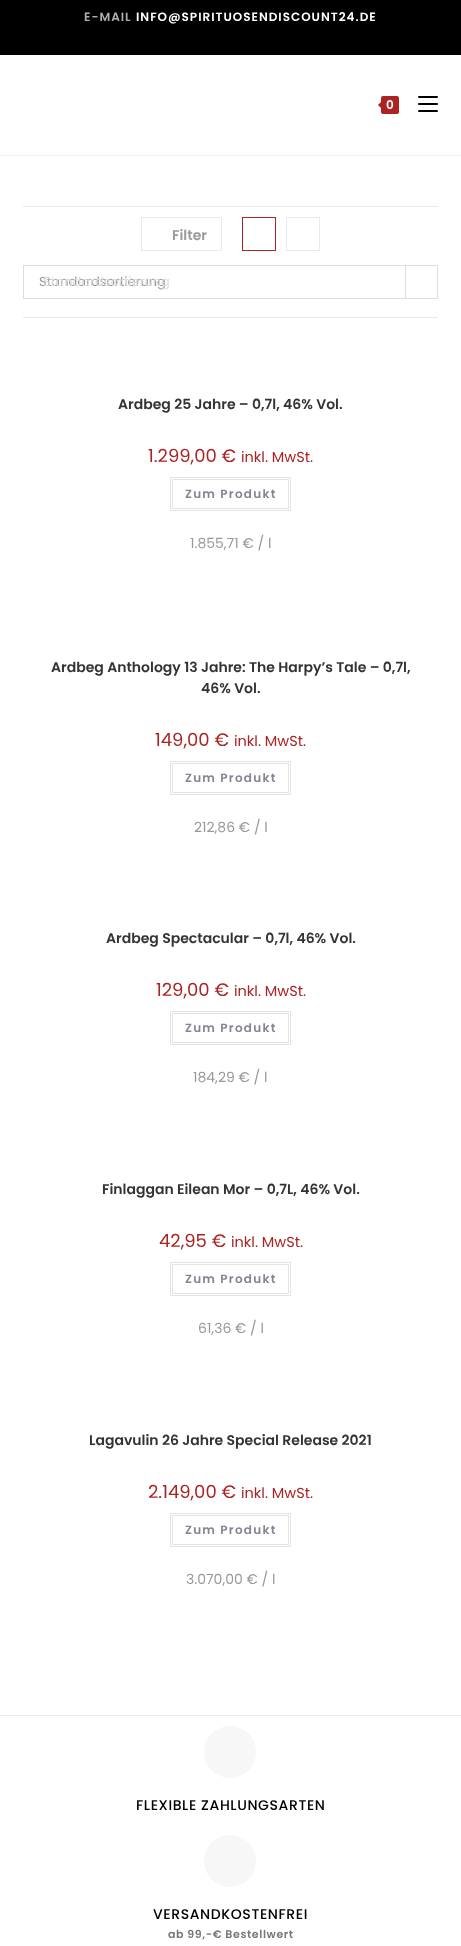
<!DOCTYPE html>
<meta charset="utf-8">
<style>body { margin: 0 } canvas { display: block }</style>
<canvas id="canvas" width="461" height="1946"></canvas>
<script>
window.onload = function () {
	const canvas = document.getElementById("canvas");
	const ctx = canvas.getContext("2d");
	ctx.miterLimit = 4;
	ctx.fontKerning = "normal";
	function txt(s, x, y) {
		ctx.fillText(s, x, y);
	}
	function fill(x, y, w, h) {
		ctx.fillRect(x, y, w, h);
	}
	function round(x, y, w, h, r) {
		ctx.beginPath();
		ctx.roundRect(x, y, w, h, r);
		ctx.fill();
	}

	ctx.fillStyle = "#FFFFFF";
	fill(0, 0, 461, 1946);
	ctx.fillStyle = "#000000";
	fill(0, 0, 461, 55);
	ctx.fillStyle = "#F1F1F1";
	fill(0, 155, 461, 1);
	ctx.fillStyle = "#AB2323";
	round(381, 96, 18, 18, 2);
	ctx.beginPath();
	ctx.moveTo(383, 100);
	ctx.lineTo(383, 110);
	ctx.lineTo(378, 105);
	ctx.closePath();
	ctx.fill();
	ctx.fillStyle = "#000000";
	round(418, 96, 20, 2, 1);
	round(418, 103, 20, 2, 1);
	round(418, 110, 20, 2, 1);
	ctx.fillStyle = "#EAEAEA";
	fill(23, 206, 415, 1);
	fill(23, 317, 415, 1);
	ctx.strokeStyle = "#EAEAEA";
	ctx.strokeRect(141.5, 217.5, 80, 33);
	ctx.strokeStyle = "#AB2323";
	ctx.strokeRect(242.5, 217.5, 33, 33);
	ctx.strokeStyle = "#EAEAEA";
	ctx.strokeRect(286.5, 217.5, 33, 33);
	ctx.strokeStyle = "#DDDDDD";
	ctx.strokeRect(23.5, 265.5, 414, 33);
	ctx.fillStyle = "#DDDDDD";
	fill(405, 266, 1, 32);
	ctx.strokeStyle = "#E4E4E4";
	ctx.strokeRect(170.5, 477.5, 120, 33);
	ctx.strokeRect(172.5, 479.5, 116, 29);
	ctx.strokeRect(170.5, 761.5, 120, 33);
	ctx.strokeRect(172.5, 763.5, 116, 29);
	ctx.strokeRect(170.5, 1011.5, 120, 33);
	ctx.strokeRect(172.5, 1013.5, 116, 29);
	ctx.strokeRect(170.5, 1262.5, 120, 33);
	ctx.strokeRect(172.5, 1264.5, 116, 29);
	ctx.strokeRect(170.5, 1513.5, 120, 33);
	ctx.strokeRect(172.5, 1515.5, 116, 29);
	ctx.fillStyle = "#EAEAEA";
	fill(0, 1715, 461, 1);
	ctx.fillStyle = "#F7F7F7";
	ctx.beginPath();
	ctx.arc(230, 1752, 26, 0, Math.PI * 2);
	ctx.fill();
	ctx.beginPath();
	ctx.arc(230, 1861, 26, 0, Math.PI * 2);
	ctx.fill();
	ctx.letterSpacing = "1px";
	ctx.font = "600 12px Poppins";
	ctx.fillStyle = "#AFAFAF";
	txt("E-MAIL", 84, 21);
	ctx.fillStyle = "#FFFFFF";
	txt("INFO@SPIRITUOSENDISCOUNT24.DE", 136, 21);
	ctx.letterSpacing = "0.6px";
	txt("0", 386, 109);
	ctx.letterSpacing = "0px";
	ctx.font = "600 14px Poppins";
	ctx.fillStyle = "#999999";
	txt("Filter", 172, 240);
	ctx.font = "13px Poppins";
	txt("Standardsortierung", 39, 286);
	ctx.fillStyle = "#DDDDDD";
	txt("Standardsortierung", 43, 286);
	ctx.font = "600 14px Poppins";
	ctx.fillStyle = "#333333";
	txt("Ardbeg 25 Jahre – 0,7l, 46% Vol.", 118, 409);
	ctx.font = "18px Poppins";
	ctx.fillStyle = "#AB2323";
	txt("1.299,00 €", 148, 462);
	ctx.font = "14.5px Poppins";
	txt("inkl. MwSt.", 241, 462);
	ctx.letterSpacing = "1.25px";
	ctx.font = "600 12px Poppins";
	ctx.fillStyle = "#848494";
	txt("Zum Produkt", 185, 498);
	ctx.letterSpacing = "0px";
	ctx.font = "14px Poppins";
	ctx.fillStyle = "#999999";
	txt("1.855,71 € / l", 190, 548);
	ctx.font = "600 14px Poppins";
	ctx.fillStyle = "#333333";
	txt("Ardbeg Anthology 13 Jahre: The Harpy’s Tale – 0,7l,", 51, 672);
	txt("46% Vol.", 201, 693);
	ctx.font = "18px Poppins";
	ctx.fillStyle = "#AB2323";
	txt("149,00 €", 155, 746);
	ctx.font = "14.5px Poppins";
	txt("inkl. MwSt.", 234, 746);
	ctx.letterSpacing = "1.25px";
	ctx.font = "600 12px Poppins";
	ctx.fillStyle = "#848494";
	txt("Zum Produkt", 185, 782);
	ctx.letterSpacing = "0px";
	ctx.font = "14px Poppins";
	ctx.fillStyle = "#999999";
	txt("212,86 € / l", 194, 832);
	ctx.font = "600 14px Poppins";
	ctx.fillStyle = "#333333";
	txt("Ardbeg Spectacular – 0,7l, 46% Vol.", 106, 943);
	ctx.font = "18px Poppins";
	ctx.fillStyle = "#AB2323";
	txt("129,00 €", 156, 996);
	ctx.font = "14.5px Poppins";
	txt("inkl. MwSt.", 234, 996);
	ctx.letterSpacing = "1.25px";
	ctx.font = "600 12px Poppins";
	ctx.fillStyle = "#848494";
	txt("Zum Produkt", 185, 1032);
	ctx.letterSpacing = "0px";
	ctx.font = "14px Poppins";
	ctx.fillStyle = "#999999";
	txt("184,29 € / l", 193, 1082);
	ctx.font = "600 14px Poppins";
	ctx.fillStyle = "#333333";
	txt("Finlaggan Eilean Mor – 0,7L, 46% Vol.", 102, 1194);
	ctx.font = "18px Poppins";
	ctx.fillStyle = "#AB2323";
	txt("42,95 €", 159, 1247);
	ctx.font = "14.5px Poppins";
	txt("inkl. MwSt.", 231, 1247);
	ctx.letterSpacing = "1.25px";
	ctx.font = "600 12px Poppins";
	ctx.fillStyle = "#848494";
	txt("Zum Produkt", 185, 1283);
	ctx.letterSpacing = "0px";
	ctx.font = "14px Poppins";
	ctx.fillStyle = "#999999";
	txt("61,36 € / l", 198, 1333);
	ctx.font = "600 14px Poppins";
	ctx.fillStyle = "#333333";
	txt("Lagavulin 26 Jahre Special Release 2021", 89, 1445);
	ctx.font = "18px Poppins";
	ctx.fillStyle = "#AB2323";
	txt("2.149,00 €", 148, 1498);
	ctx.font = "14.5px Poppins";
	txt("inkl. MwSt.", 241, 1498);
	ctx.letterSpacing = "1.25px";
	ctx.font = "600 12px Poppins";
	ctx.fillStyle = "#848494";
	txt("Zum Produkt", 185, 1534);
	ctx.letterSpacing = "0px";
	ctx.font = "14px Poppins";
	ctx.fillStyle = "#999999";
	txt("3.070,00 € / l", 186, 1584);
	ctx.letterSpacing = "0.6px";
	ctx.font = "500 14px Poppins";
	ctx.fillStyle = "#000000";
	txt("FLEXIBLE ZAHLUNGSARTEN", 136, 1810);
	txt("VERSANDKOSTENFREI", 153, 1919);
	ctx.font = "600 11px Poppins";
	ctx.fillStyle = "#777777";
	txt("ab 99,-€ Bestellwert", 168, 1938);
};
</script>
